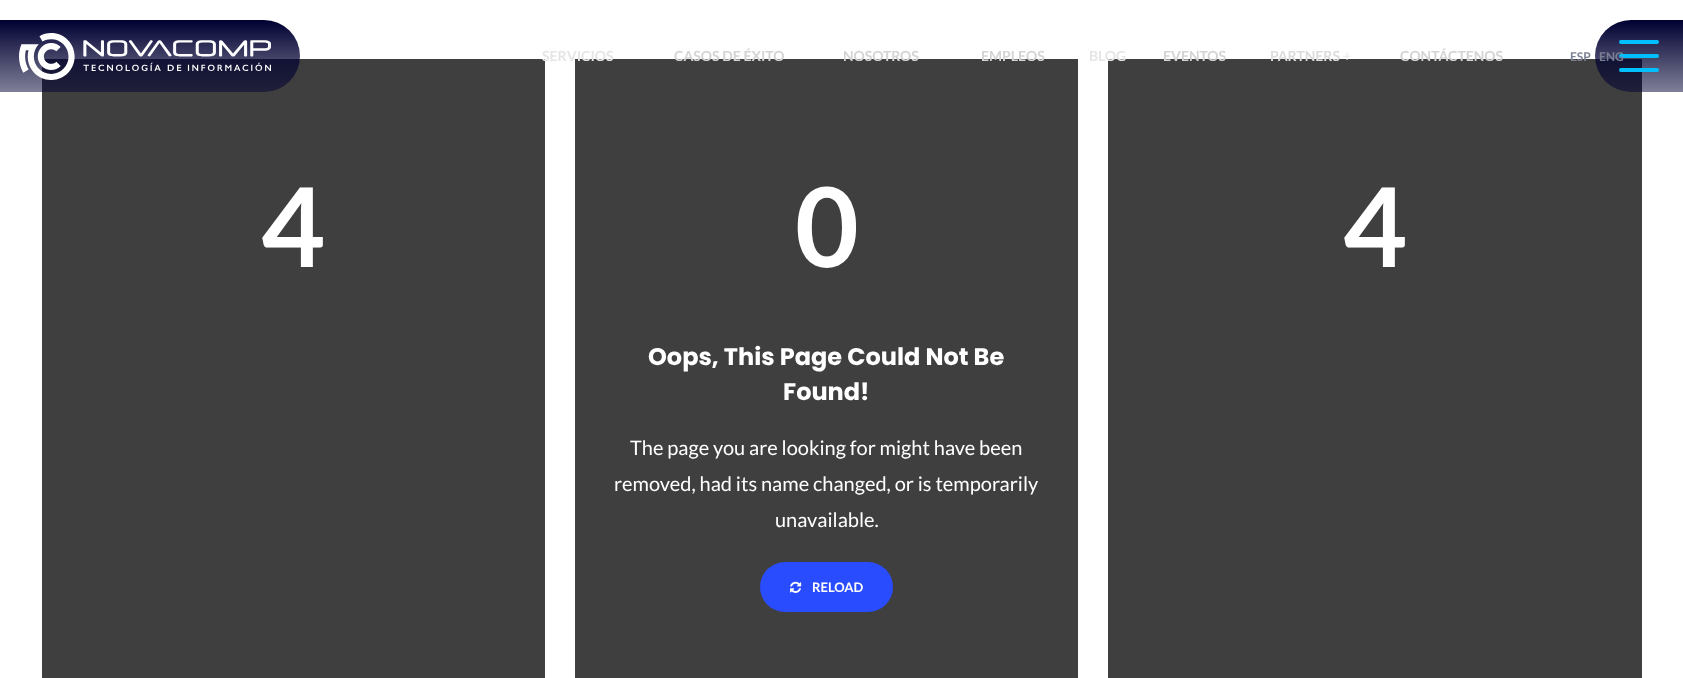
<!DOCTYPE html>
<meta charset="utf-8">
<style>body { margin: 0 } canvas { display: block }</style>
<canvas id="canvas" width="1683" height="678"></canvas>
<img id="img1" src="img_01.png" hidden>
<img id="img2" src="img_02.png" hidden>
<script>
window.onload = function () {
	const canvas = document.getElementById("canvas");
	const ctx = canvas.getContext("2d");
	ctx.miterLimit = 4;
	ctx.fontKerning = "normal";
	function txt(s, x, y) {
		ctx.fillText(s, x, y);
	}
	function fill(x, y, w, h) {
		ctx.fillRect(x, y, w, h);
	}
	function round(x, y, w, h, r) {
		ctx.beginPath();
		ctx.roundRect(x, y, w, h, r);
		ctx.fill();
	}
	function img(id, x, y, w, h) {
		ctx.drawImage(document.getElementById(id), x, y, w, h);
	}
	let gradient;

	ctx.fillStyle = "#FFFFFF";
	fill(0, 0, 1683, 678);
	ctx.fillStyle = "#3F3F3F";
	fill(42, 59, 1600, 619);
	gradient = ctx.createLinearGradient(150, 20, 150, 92);
	gradient.addColorStop(0, "#000032");
	gradient.addColorStop(1, "rgba(0, 0, 50, 0.5)");
	ctx.fillStyle = gradient;
	ctx.beginPath();
	ctx.roundRect(0, 20, 300, 72, [0, 36, 36, 0]);
	ctx.fill();
	img("img1", 19, 33, 252, 47);
	gradient = ctx.createLinearGradient(1639, 20, 1639, 92);
	gradient.addColorStop(0, "#000032");
	gradient.addColorStop(1, "rgba(0, 0, 50, 0.5)");
	ctx.fillStyle = gradient;
	ctx.beginPath();
	ctx.roundRect(1595, 20, 88, 72, [36, 0, 0, 36]);
	ctx.fill();
	ctx.fillStyle = "#00C0FF";
	round(1619, 40, 40, 4, 2);
	round(1619, 54, 40, 4, 2);
	round(1619, 68, 40, 4, 2);
	ctx.fillStyle = "#FFFFFF";
	fill(545, 59, 30, 619);
	fill(1078, 59, 30, 619);
	ctx.fillStyle = "#294CFF";
	round(760, 562, 133, 50, 25);
	img("img2", 790, 581, 12, 12);
	ctx.font = "bold 14px Lato";
	ctx.fillStyle = "#E5E5E5";
	txt("SERVICIOS", 542, 61);
	ctx.fillStyle = "#D4D4D4";
	txt("CASOS DE ÉXITO", 674, 61);
	txt("NOSOTROS", 843, 61);
	txt("EMPLEOS", 981, 61);
	ctx.fillStyle = "#E5E5E5";
	txt("BLOG", 1089, 61);
	ctx.fillStyle = "#D4D4D4";
	txt("EVENTOS", 1163, 61);
	ctx.fillStyle = "#DCDCDC";
	txt("PARTNERS", 1270, 61);
	ctx.fillStyle = "#EDEDED";
	txt("+", 1343, 61);
	ctx.fillStyle = "#D4D4D4";
	txt("CONTÁCTENOS", 1400, 61);
	ctx.wordSpacing = "6px";
	ctx.font = "bold 12px Lato";
	ctx.fillStyle = "#7A8094";
	txt("ESP ENG", 1570, 61);
	ctx.wordSpacing = "0px";
	ctx.font = "bold 110px Lato";
	ctx.fillStyle = "#FFFFFF";
	txt("4", 261, 267);
	txt("0", 795, 267);
	ctx.font = "bold 24px Poppins";
	txt("Oops, This Page Could Not Be", 648, 365);
	txt("Found!", 783, 400);
	ctx.font = "20px Lato";
	txt("The page you are looking for might have been", 630, 455);
	txt("removed, had its name changed, or is temporarily", 614, 491);
	txt("unavailable.", 775, 527);
	ctx.font = "bold 13px Lato";
	txt("RELOAD", 812, 592);
	ctx.font = "bold 110px Lato";
	txt("4", 1343, 267);
};
</script>
